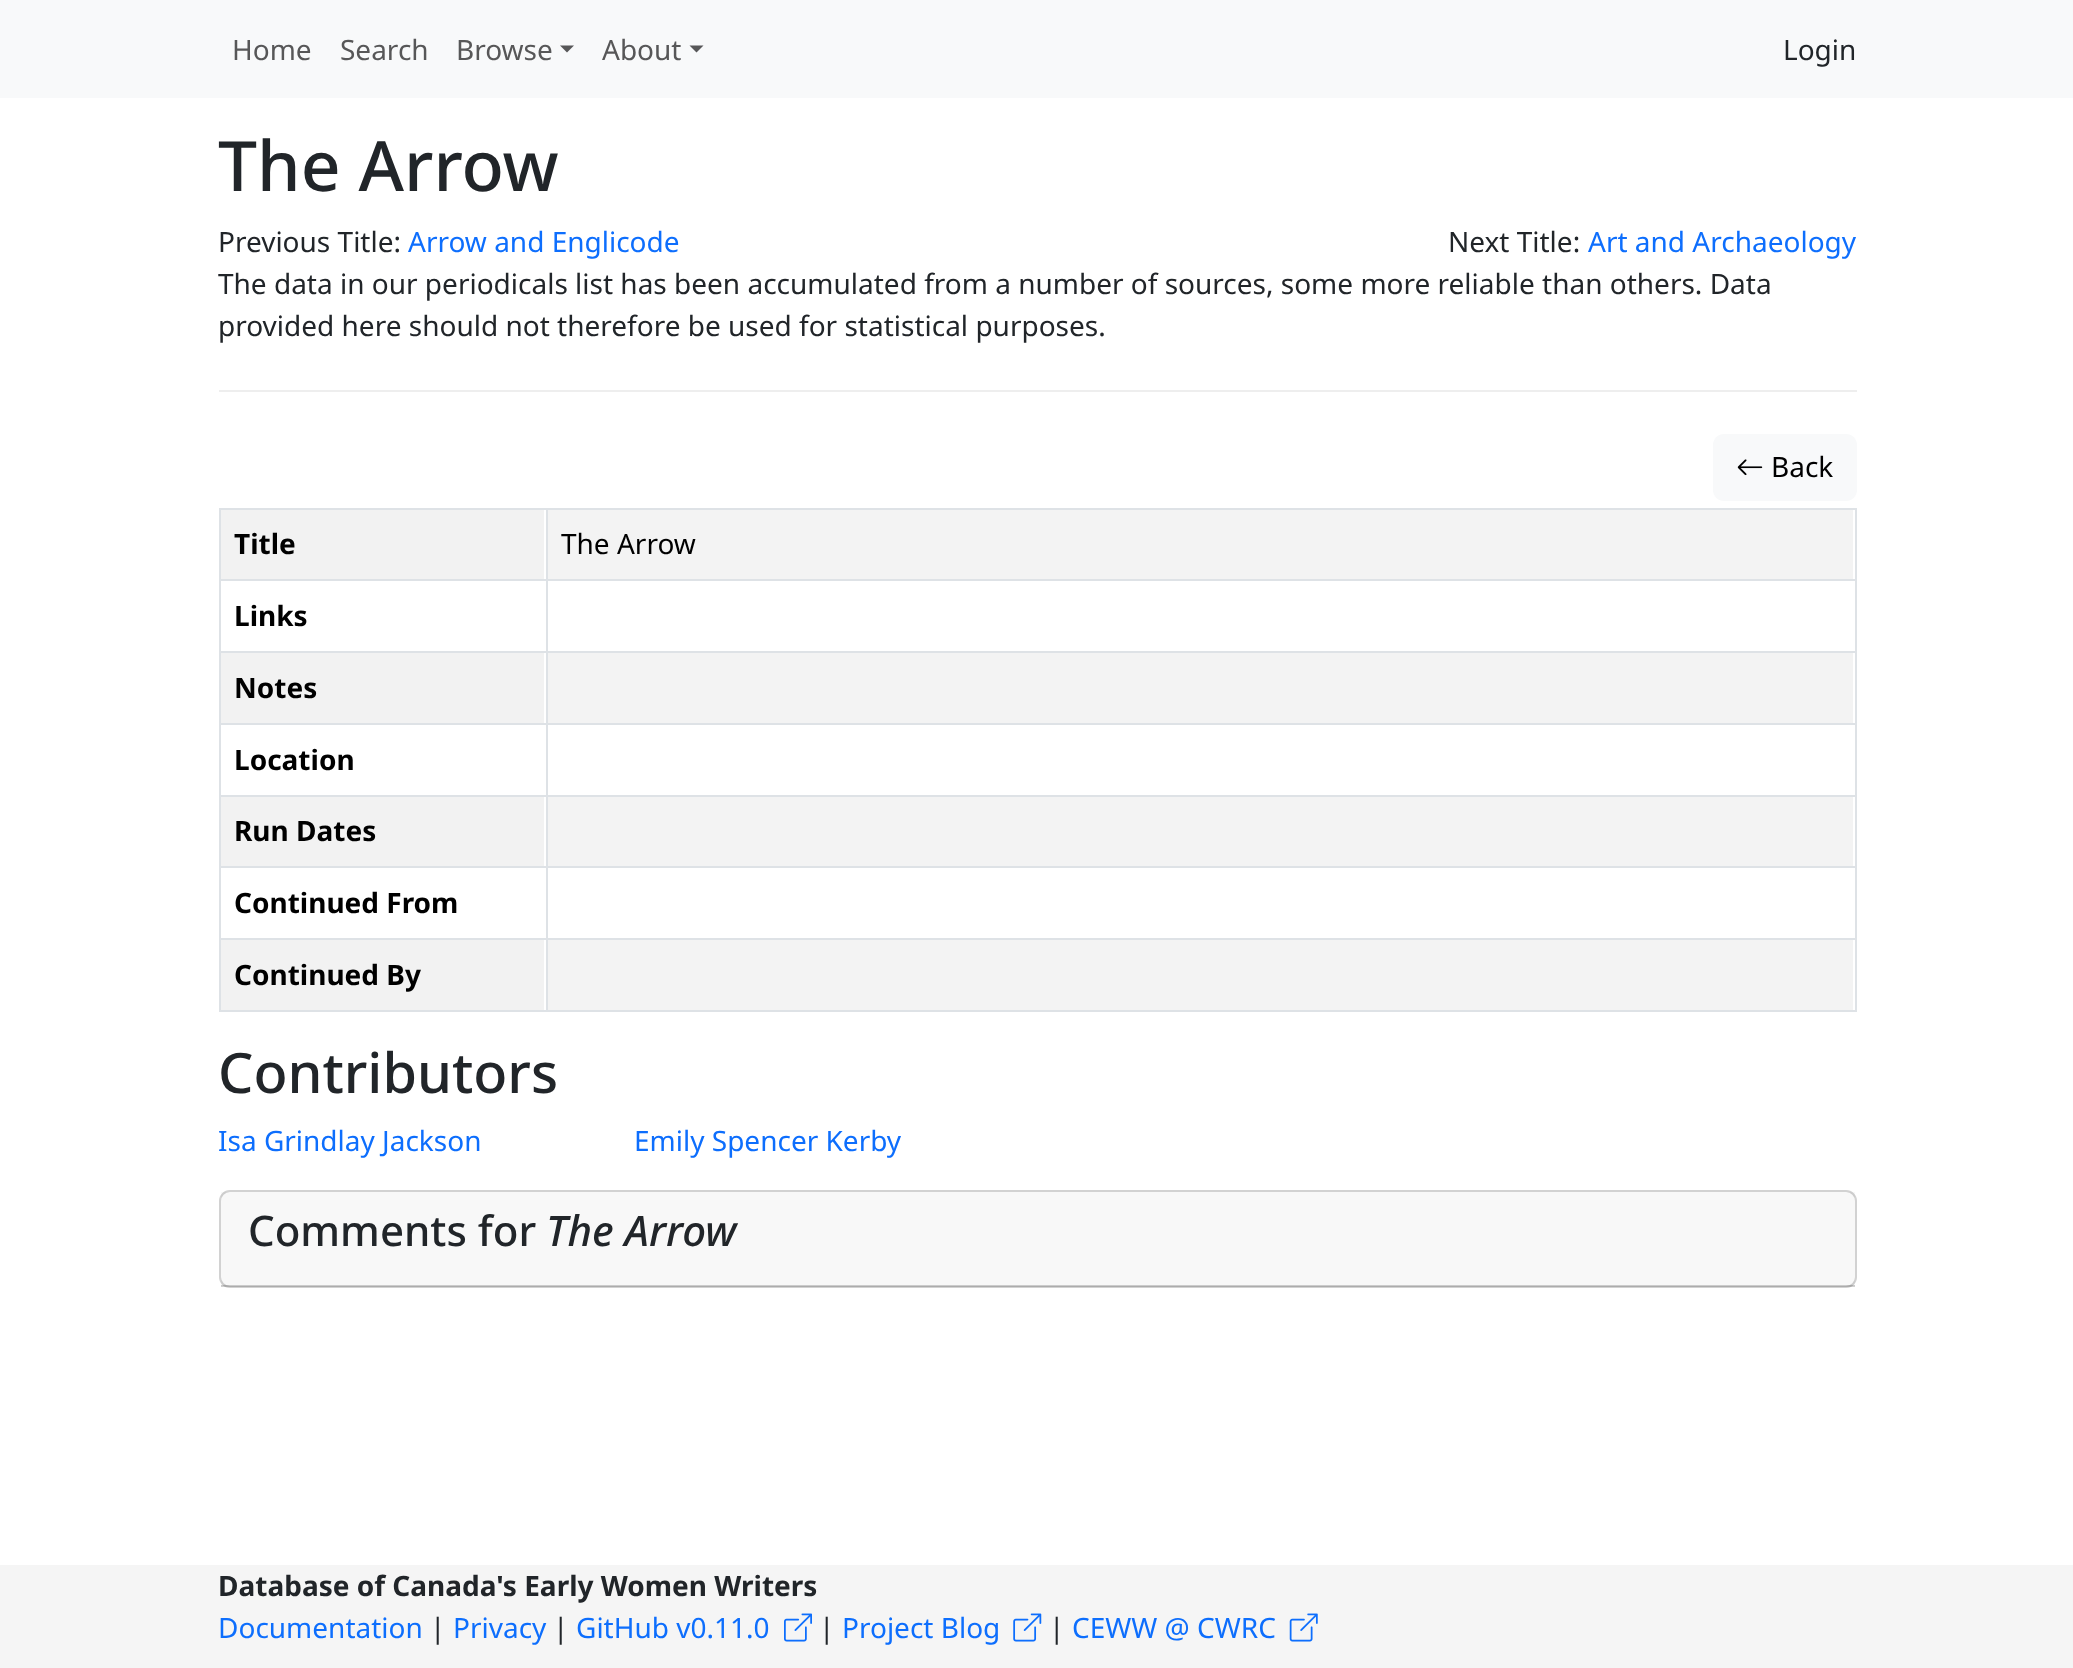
<!DOCTYPE html>
<meta charset="utf-8">
<style>body { margin: 0 } canvas { display: block }</style>
<canvas id="canvas" width="2073" height="1668"></canvas>
<img id="img1" src="img_01.png" hidden>
<img id="img2" src="img_02.png" hidden>
<img id="img3" src="img_03.png" hidden>
<img id="img4" src="img_04.png" hidden>
<script>
window.onload = function () {
	const canvas = document.getElementById("canvas");
	const ctx = canvas.getContext("2d");
	ctx.miterLimit = 4;
	ctx.fontKerning = "normal";
	function txt(s, x, y) {
		ctx.fillText(s, x, y);
	}
	function fill(x, y, w, h) {
		ctx.fillRect(x, y, w, h);
	}
	function round(x, y, w, h, r) {
		ctx.beginPath();
		ctx.roundRect(x, y, w, h, r);
		ctx.fill();
	}
	function img(id, x, y, w, h) {
		ctx.drawImage(document.getElementById(id), x, y, w, h);
	}

	ctx.fillStyle = "#FFFFFF";
	fill(0, 0, 2073, 1668);
	ctx.fillStyle = "#F8F9FA";
	fill(0, 0, 2073, 98);
	ctx.fillStyle = "#575758";
	ctx.beginPath();
	ctx.moveTo(560, 45.5);
	ctx.lineTo(574, 45.5);
	ctx.lineTo(567, 52.5);
	ctx.closePath();
	ctx.fill();
	ctx.beginPath();
	ctx.moveTo(689.5, 45.5);
	ctx.lineTo(703.5, 45.5);
	ctx.lineTo(696.5, 52.5);
	ctx.closePath();
	ctx.fill();
	ctx.fillStyle = "#EEEEEE";
	fill(219, 390, 1638, 2);
	ctx.fillStyle = "#F8F9FA";
	round(1713, 434, 144, 67, 11);
	img("img1", 1737, 459, 26, 17);
	ctx.fillStyle = "#DEE2E6";
	fill(219, 508, 1638, 2);
	ctx.fillStyle = "#F2F2F2";
	fill(221, 510, 323, 69);
	ctx.fillStyle = "#F3F3F3";
	fill(548, 510, 1305, 69);
	ctx.fillStyle = "#DEE2E6";
	fill(219, 579, 1638, 2);
	fill(219, 651, 1638, 2);
	ctx.fillStyle = "#F2F2F2";
	fill(221, 653, 323, 70);
	ctx.fillStyle = "#F3F3F3";
	fill(548, 653, 1305, 70);
	ctx.fillStyle = "#DEE2E6";
	fill(219, 723, 1638, 2);
	fill(219, 795, 1638, 2);
	ctx.fillStyle = "#F2F2F2";
	fill(221, 797, 323, 69);
	ctx.fillStyle = "#F3F3F3";
	fill(548, 797, 1305, 69);
	ctx.fillStyle = "#DEE2E6";
	fill(219, 866, 1638, 2);
	fill(219, 938, 1638, 2);
	fill(219, 1010, 1638, 2);
	ctx.fillStyle = "#F2F2F2";
	fill(221, 940, 323, 70);
	ctx.fillStyle = "#DEE2E6";
	fill(219, 508, 2, 504);
	ctx.fillStyle = "#F3F3F3";
	fill(548, 940, 1305, 70);
	ctx.fillStyle = "#DEE2E6";
	fill(1855, 508, 2, 504);
	fill(546, 508, 2, 504);
	ctx.beginPath();
	ctx.roundRect(220, 1191, 1636, 96, 10);
	ctx.strokeStyle = "#D2D2D2";
	ctx.lineWidth = 2;
	ctx.stroke();
	ctx.fillStyle = "rgba(33, 37, 41, 0.03)";
	fill(221, 1192, 1634, 94);
	ctx.fillStyle = "rgba(0, 0, 0, 0.18)";
	fill(221, 1285, 1634, 2);
	ctx.fillStyle = "#F5F5F5";
	fill(0, 1565, 2073, 103);
	img("img2", 784, 1613, 28, 29);
	img("img3", 1013, 1613, 29, 29);
	img("img4", 1289, 1613, 29, 29);
	ctx.font = "28px Noto Sans";
	ctx.fillStyle = "#575758";
	txt("Home", 232, 60);
	txt("Search", 340, 60);
	txt("Browse", 456, 60);
	txt("About", 602, 60);
	ctx.fillStyle = "#212529";
	txt("Login", 1783, 60);
	ctx.font = "500 69.5px Noto Sans";
	txt("The Arrow", 218, 191);
	ctx.font = "28px Noto Sans";
	txt("Previous Title:", 218, 252);
	ctx.fillStyle = "#0D6EFD";
	txt("Arrow and Englicode", 408, 252);
	ctx.fillStyle = "#212529";
	txt("Next Title:", 1448, 252);
	ctx.fillStyle = "#0D6EFD";
	txt("Art and Archaeology", 1588, 252);
	ctx.fillStyle = "#212529";
	txt("The data in our periodicals list has been accumulated from a number of sources, some more reliable than others. Data", 218, 294);
	txt("provided here should not therefore be used for statistical purposes.", 218, 336);
	ctx.fillStyle = "#000000";
	txt("Back", 1771, 477);
	ctx.font = "bold 28px Noto Sans";
	txt("Title", 234, 554);
	ctx.font = "28px Noto Sans";
	txt("The Arrow", 561, 554);
	ctx.font = "bold 28px Noto Sans";
	txt("Links", 234, 626);
	txt("Notes", 234, 698);
	txt("Location", 234, 770);
	txt("Run Dates", 234, 841);
	txt("Continued From", 234, 913);
	txt("Continued By", 234, 985);
	ctx.font = "500 55.75px Noto Sans";
	ctx.fillStyle = "#212529";
	txt("Contributors", 218, 1093);
	ctx.font = "28px Noto Sans";
	ctx.fillStyle = "#0D6EFD";
	txt("Isa Grindlay Jackson", 218, 1151);
	txt("Emily Spencer Kerby", 634, 1151);
	ctx.font = "500 42px Noto Sans";
	ctx.fillStyle = "#212529";
	txt("Comments for", 248, 1246);
	ctx.font = "italic 500 42px Noto Sans";
	txt("The Arrow", 546, 1246);
	ctx.font = "bold 28px Noto Sans";
	txt("Database of Canada's Early Women Writers", 218, 1596);
	ctx.font = "28px Noto Sans";
	ctx.fillStyle = "#0D6EFD";
	txt("Documentation", 218, 1638);
	ctx.fillStyle = "#212529";
	txt("|", 430, 1638);
	ctx.fillStyle = "#0D6EFD";
	txt("Privacy", 453, 1638);
	ctx.fillStyle = "#212529";
	txt("|", 553, 1638);
	ctx.fillStyle = "#0D6EFD";
	txt("GitHub v0.11.0", 576, 1638);
	ctx.fillStyle = "#212529";
	txt("|", 819, 1638);
	ctx.fillStyle = "#0D6EFD";
	txt("Project Blog", 842, 1638);
	ctx.fillStyle = "#212529";
	txt("|", 1049, 1638);
	ctx.fillStyle = "#0D6EFD";
	txt("CEWW @ CWRC", 1072, 1638);
};
</script>
